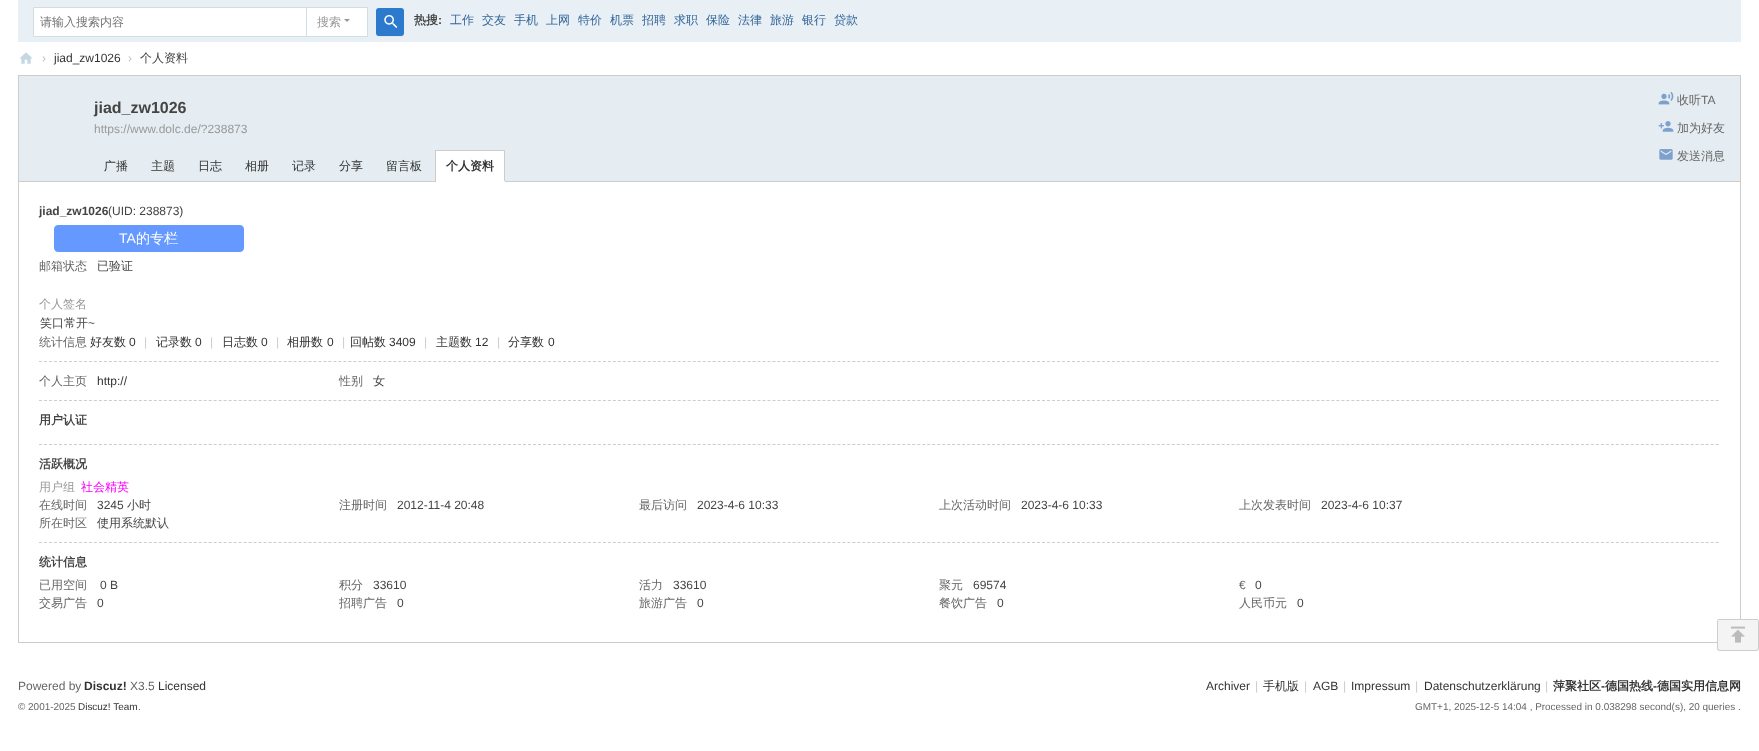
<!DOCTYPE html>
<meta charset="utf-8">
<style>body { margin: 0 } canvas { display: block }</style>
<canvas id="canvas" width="1759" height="751"></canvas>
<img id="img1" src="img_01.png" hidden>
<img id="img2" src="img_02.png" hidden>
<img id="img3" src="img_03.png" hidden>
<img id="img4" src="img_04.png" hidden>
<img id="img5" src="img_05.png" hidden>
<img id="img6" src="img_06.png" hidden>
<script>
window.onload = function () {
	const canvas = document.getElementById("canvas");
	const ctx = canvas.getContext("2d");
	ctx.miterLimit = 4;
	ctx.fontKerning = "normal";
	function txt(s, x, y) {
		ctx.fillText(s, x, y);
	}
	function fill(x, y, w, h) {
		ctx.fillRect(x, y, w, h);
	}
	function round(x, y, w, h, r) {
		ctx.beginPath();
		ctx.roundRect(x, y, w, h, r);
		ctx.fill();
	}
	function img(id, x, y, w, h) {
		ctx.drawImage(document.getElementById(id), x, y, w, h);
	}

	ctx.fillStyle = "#FFFFFF";
	fill(0, 0, 1759, 751);
	ctx.fillStyle = "#E8EFF5";
	fill(18, 0, 1723, 42);
	ctx.fillStyle = "#CFDEE3";
	fill(305, 7, 63, 1);
	fill(367, 7, 1, 30);
	fill(305, 36, 63, 1);
	ctx.fillStyle = "#FFFFFF";
	ctx.beginPath();
	ctx.rect(33.5, 7.5, 273, 29);
	ctx.fill();
	ctx.strokeStyle = "#CFDEE3";
	ctx.stroke();
	fill(307, 8, 60, 28);
	ctx.fillStyle = "#999999";
	ctx.beginPath();
	ctx.moveTo(344, 19);
	ctx.lineTo(350, 19);
	ctx.lineTo(347, 22);
	ctx.closePath();
	ctx.fill();
	ctx.fillStyle = "#E5E5E5";
	ctx.beginPath();
	ctx.moveTo(376, 33);
	ctx.bezierCurveTo(376, 37.5, 379, 37, 382.5, 37);
	ctx.lineTo(397.5, 37);
	ctx.bezierCurveTo(401, 37, 404, 37.5, 404, 33);
	ctx.bezierCurveTo(404, 34.5, 402.5, 36, 401, 36);
	ctx.lineTo(379, 36);
	ctx.bezierCurveTo(377.5, 36, 376, 34.5, 376, 33);
	ctx.closePath();
	ctx.fill();
	ctx.fillStyle = "#2B7ACD";
	round(376, 8, 28, 28, 3);
	img("img1", 384, 15, 14, 13);
	img("img2", 19, 52, 14, 12);
	ctx.fillStyle = "#E5EDF2";
	fill(19, 76, 1721, 105);
	ctx.fillStyle = "#CCCCCC";
	fill(18, 75, 1723, 1);
	fill(1740, 75, 1, 544);
	fill(18, 75, 1, 107);
	img("img3", 1658, 91, 16, 14);
	img("img4", 1658, 121, 16, 11);
	img("img5", 1659, 149, 14, 11);
	ctx.fillStyle = "#CDCDCD";
	fill(19, 181, 1721, 1);
	ctx.fillStyle = "#FFFFFF";
	fill(436, 151, 68, 30);
	ctx.fillStyle = "#CCCCCC";
	fill(435, 150, 70, 1);
	fill(504, 150, 1, 32);
	ctx.fillStyle = "#FFFFFF";
	fill(435, 181, 70, 1);
	ctx.fillStyle = "#CCCCCC";
	fill(435, 150, 1, 32);
	fill(18, 642, 1699, 1);
	fill(18, 182, 1, 461);
	ctx.beginPath();
	ctx.moveTo(39, 400.5);
	ctx.lineTo(1720, 400.5);
	ctx.strokeStyle = "#CDCDCD";
	ctx.setLineDash([3, 1.99]);
	ctx.stroke();
	ctx.fillStyle = "#6699FF";
	ctx.beginPath();
	ctx.roundRect(54.5, 225.5, 189, 26, 3.5);
	ctx.fill();
	ctx.strokeStyle = "#6699FF";
	ctx.setLineDash([]);
	ctx.stroke();
	ctx.beginPath();
	ctx.moveTo(39, 361.5);
	ctx.lineTo(1720, 361.5);
	ctx.strokeStyle = "#CDCDCD";
	ctx.setLineDash([3, 1.99]);
	ctx.stroke();
	ctx.beginPath();
	ctx.moveTo(39, 444.5);
	ctx.lineTo(1720, 444.5);
	ctx.stroke();
	ctx.beginPath();
	ctx.moveTo(39, 542.5);
	ctx.lineTo(1720, 542.5);
	ctx.stroke();
	ctx.fillStyle = "#F4F4F4";
	round(1717, 619, 42, 32, 3);
	ctx.fillStyle = "#CDCDCD";
	ctx.beginPath();
	ctx.moveTo(1720, 619);
	ctx.lineTo(1756, 619);
	ctx.bezierCurveTo(1758, 619, 1759, 620, 1759, 622);
	ctx.lineTo(1759, 648);
	ctx.bezierCurveTo(1759, 650, 1758, 651, 1756, 651);
	ctx.lineTo(1720, 651);
	ctx.bezierCurveTo(1718, 651, 1717, 650, 1717, 648);
	ctx.lineTo(1717, 622);
	ctx.bezierCurveTo(1717, 620, 1718, 619, 1720, 619);
	ctx.closePath();
	ctx.moveTo(1720, 619);
	ctx.lineTo(1756, 619);
	ctx.bezierCurveTo(1757, 619, 1758, 620, 1758, 622);
	ctx.lineTo(1758, 648);
	ctx.bezierCurveTo(1758, 649, 1757, 650, 1756, 650);
	ctx.lineTo(1720, 650);
	ctx.bezierCurveTo(1719, 650, 1718, 649, 1718, 648);
	ctx.lineTo(1718, 622);
	ctx.bezierCurveTo(1718, 620, 1719, 619, 1720, 619);
	ctx.closePath();
	ctx.fill("evenodd");
	fill(1718, 619, 40, 1);
	img("img6", 1731, 626, 14, 17);
	ctx.font = "500 12px WenQuanYi Zen Hei";
	ctx.fillStyle = "#757575";
	txt("请输入搜索内容", 40, 26);
	ctx.fillStyle = "#999999";
	txt("搜索", 317, 26);
	ctx.font = "bold 12px WenQuanYi Zen Hei";
	ctx.fillStyle = "#444444";
	txt("热搜", 414, 24);
	ctx.font = "bold 12px Liberation Sans";
	txt(":", 438, 24);
	ctx.font = "500 12px WenQuanYi Zen Hei";
	ctx.fillStyle = "#336699";
	txt("工作", 450, 24);
	txt("交友", 482, 24);
	txt("手机", 514, 24);
	txt("上网", 546, 24);
	txt("特价", 578, 24);
	txt("机票", 610, 24);
	txt("招聘", 642, 24);
	txt("求职", 674, 24);
	txt("保险", 706, 24);
	txt("法律", 738, 24);
	txt("旅游", 770, 24);
	txt("银行", 802, 24);
	txt("贷款", 834, 24);
	ctx.font = "12px Liberation Sans";
	ctx.fillStyle = "#BDBDBD";
	txt("›", 42, 62);
	ctx.fillStyle = "#333333";
	txt("jiad_zw1026", 54, 62);
	ctx.fillStyle = "#BDBDBD";
	txt("›", 128, 62);
	ctx.font = "500 12px WenQuanYi Zen Hei";
	ctx.fillStyle = "#444444";
	txt("个人资料", 140, 62);
	ctx.font = "bold 16px Liberation Sans";
	txt("jiad_zw1026", 94, 113);
	ctx.font = "12px Liberation Sans";
	ctx.fillStyle = "#999999";
	txt("https://www.dolc.de/?238873", 94, 133);
	ctx.font = "500 12px WenQuanYi Zen Hei";
	ctx.fillStyle = "#666666";
	txt("收听", 1677, 104);
	ctx.font = "12px Liberation Sans";
	txt("TA", 1701, 104);
	ctx.font = "500 12px WenQuanYi Zen Hei";
	txt("加为好友", 1677, 132);
	txt("发送消息", 1677, 160);
	ctx.fillStyle = "#333333";
	txt("广播", 104, 170);
	txt("主题", 151, 170);
	txt("日志", 198, 170);
	txt("相册", 245, 170);
	txt("记录", 292, 170);
	txt("分享", 339, 170);
	txt("留言板", 386, 170);
	ctx.font = "bold 12px WenQuanYi Zen Hei";
	txt("个人资料", 446, 170);
	ctx.font = "bold 12px Liberation Sans";
	ctx.fillStyle = "#444444";
	txt("jiad_zw1026", 39, 215);
	ctx.font = "12px Liberation Sans";
	txt("(UID: 238873)", 108, 215);
	ctx.font = "14px Liberation Sans";
	ctx.fillStyle = "#FFFFFF";
	txt("TA", 119, 243);
	ctx.font = "500 14px WenQuanYi Zen Hei";
	txt("的专栏", 136, 243);
	ctx.font = "500 12px WenQuanYi Zen Hei";
	ctx.fillStyle = "#666666";
	txt("邮箱状态", 39, 270);
	ctx.fillStyle = "#444444";
	txt("已验证", 97, 270);
	ctx.fillStyle = "#999999";
	txt("个人签名", 39, 308);
	ctx.fillStyle = "#444444";
	txt("笑口常开", 40, 327);
	ctx.font = "12px Liberation Sans";
	txt("~", 88, 327);
	ctx.font = "500 12px WenQuanYi Zen Hei";
	ctx.fillStyle = "#666666";
	txt("统计信息", 39, 346);
	ctx.fillStyle = "#333333";
	txt("好友数", 90, 346);
	ctx.font = "12px Liberation Sans";
	txt("0", 129, 346);
	ctx.fillStyle = "#CCCCCC";
	txt("|", 144, 346);
	ctx.font = "500 12px WenQuanYi Zen Hei";
	ctx.fillStyle = "#333333";
	txt("记录数", 156, 346);
	ctx.font = "12px Liberation Sans";
	txt("0", 195, 346);
	ctx.fillStyle = "#CCCCCC";
	txt("|", 210, 346);
	ctx.font = "500 12px WenQuanYi Zen Hei";
	ctx.fillStyle = "#333333";
	txt("日志数", 222, 346);
	ctx.font = "12px Liberation Sans";
	txt("0", 261, 346);
	ctx.fillStyle = "#CCCCCC";
	txt("|", 276, 346);
	ctx.font = "500 12px WenQuanYi Zen Hei";
	ctx.fillStyle = "#333333";
	txt("相册数", 287, 346);
	ctx.font = "12px Liberation Sans";
	txt("0", 327, 346);
	ctx.fillStyle = "#CCCCCC";
	txt("|", 342, 346);
	ctx.font = "500 12px WenQuanYi Zen Hei";
	ctx.fillStyle = "#333333";
	txt("回帖数", 350, 346);
	ctx.font = "12px Liberation Sans";
	txt("3409", 389, 346);
	ctx.fillStyle = "#CCCCCC";
	txt("|", 424, 346);
	ctx.font = "500 12px WenQuanYi Zen Hei";
	ctx.fillStyle = "#333333";
	txt("主题数", 436, 346);
	ctx.font = "12px Liberation Sans";
	txt("12", 475, 346);
	ctx.fillStyle = "#CCCCCC";
	txt("|", 497, 346);
	ctx.font = "500 12px WenQuanYi Zen Hei";
	ctx.fillStyle = "#333333";
	txt("分享数", 508, 346);
	ctx.font = "12px Liberation Sans";
	txt("0", 548, 346);
	ctx.font = "500 12px WenQuanYi Zen Hei";
	ctx.fillStyle = "#666666";
	txt("个人主页", 39, 385);
	ctx.font = "12px Liberation Sans";
	ctx.fillStyle = "#333333";
	txt("http://", 97, 385);
	ctx.font = "500 12px WenQuanYi Zen Hei";
	ctx.fillStyle = "#666666";
	txt("性别", 339, 385);
	ctx.fillStyle = "#444444";
	txt("女", 373, 385);
	ctx.font = "bold 12px WenQuanYi Zen Hei";
	txt("用户认证", 39, 424);
	txt("活跃概况", 39, 468);
	ctx.font = "500 12px WenQuanYi Zen Hei";
	ctx.fillStyle = "#999999";
	txt("用户组", 39, 491);
	ctx.fillStyle = "#FF00FF";
	txt("社会精英", 81, 491);
	ctx.fillStyle = "#666666";
	txt("在线时间", 39, 509);
	ctx.font = "12px Liberation Sans";
	ctx.fillStyle = "#444444";
	txt("3245", 97, 509);
	ctx.font = "500 12px WenQuanYi Zen Hei";
	txt("小时", 127, 509);
	ctx.fillStyle = "#666666";
	txt("注册时间", 339, 509);
	ctx.font = "12px Liberation Sans";
	ctx.fillStyle = "#444444";
	txt("2012-11-4 20:48", 397, 509);
	ctx.font = "500 12px WenQuanYi Zen Hei";
	ctx.fillStyle = "#666666";
	txt("最后访问", 639, 509);
	ctx.font = "12px Liberation Sans";
	ctx.fillStyle = "#444444";
	txt("2023-4-6 10:33", 697, 509);
	ctx.font = "500 12px WenQuanYi Zen Hei";
	ctx.fillStyle = "#666666";
	txt("上次活动时间", 939, 509);
	ctx.font = "12px Liberation Sans";
	ctx.fillStyle = "#444444";
	txt("2023-4-6 10:33", 1021, 509);
	ctx.font = "500 12px WenQuanYi Zen Hei";
	ctx.fillStyle = "#666666";
	txt("上次发表时间", 1239, 509);
	ctx.font = "12px Liberation Sans";
	ctx.fillStyle = "#444444";
	txt("2023-4-6 10:37", 1321, 509);
	ctx.font = "500 12px WenQuanYi Zen Hei";
	ctx.fillStyle = "#666666";
	txt("所在时区", 39, 527);
	ctx.fillStyle = "#444444";
	txt("使用系统默认", 97, 527);
	ctx.font = "bold 12px WenQuanYi Zen Hei";
	txt("统计信息", 39, 566);
	ctx.font = "500 12px WenQuanYi Zen Hei";
	ctx.fillStyle = "#666666";
	txt("已用空间", 39, 589);
	ctx.font = "12px Liberation Sans";
	ctx.fillStyle = "#444444";
	txt("0 B", 100, 589);
	ctx.font = "500 12px WenQuanYi Zen Hei";
	ctx.fillStyle = "#666666";
	txt("积分", 339, 589);
	ctx.font = "12px Liberation Sans";
	ctx.fillStyle = "#444444";
	txt("33610", 373, 589);
	ctx.font = "500 12px WenQuanYi Zen Hei";
	ctx.fillStyle = "#666666";
	txt("活力", 639, 589);
	ctx.font = "12px Liberation Sans";
	ctx.fillStyle = "#444444";
	txt("33610", 673, 589);
	ctx.font = "500 12px WenQuanYi Zen Hei";
	ctx.fillStyle = "#666666";
	txt("聚元", 939, 589);
	ctx.font = "12px Liberation Sans";
	ctx.fillStyle = "#444444";
	txt("69574", 973, 589);
	ctx.fillStyle = "#666666";
	txt("€", 1239, 589);
	ctx.fillStyle = "#444444";
	txt("0", 1255, 589);
	ctx.font = "500 12px WenQuanYi Zen Hei";
	ctx.fillStyle = "#666666";
	txt("交易广告", 39, 607);
	ctx.font = "12px Liberation Sans";
	ctx.fillStyle = "#444444";
	txt("0", 97, 607);
	ctx.font = "500 12px WenQuanYi Zen Hei";
	ctx.fillStyle = "#666666";
	txt("招聘广告", 339, 607);
	ctx.font = "12px Liberation Sans";
	ctx.fillStyle = "#444444";
	txt("0", 397, 607);
	ctx.font = "500 12px WenQuanYi Zen Hei";
	ctx.fillStyle = "#666666";
	txt("旅游广告", 639, 607);
	ctx.font = "12px Liberation Sans";
	ctx.fillStyle = "#444444";
	txt("0", 697, 607);
	ctx.font = "500 12px WenQuanYi Zen Hei";
	ctx.fillStyle = "#666666";
	txt("餐饮广告", 939, 607);
	ctx.font = "12px Liberation Sans";
	ctx.fillStyle = "#444444";
	txt("0", 997, 607);
	ctx.font = "500 12px WenQuanYi Zen Hei";
	ctx.fillStyle = "#666666";
	txt("人民币元", 1239, 607);
	ctx.font = "12px Liberation Sans";
	ctx.fillStyle = "#444444";
	txt("0", 1297, 607);
	ctx.fillStyle = "#666666";
	txt("Powered by", 18, 690);
	ctx.font = "bold 12px Liberation Sans";
	ctx.fillStyle = "#333333";
	txt("Discuz!", 84, 690);
	ctx.font = "12px Liberation Sans";
	ctx.fillStyle = "#666666";
	txt("X3.5", 130, 690);
	ctx.fillStyle = "#333333";
	txt("Licensed", 158, 690);
	ctx.font = "9.95px Liberation Sans";
	ctx.fillStyle = "#666666";
	txt("© 2001-2025", 18, 710);
	ctx.fillStyle = "#333333";
	txt("Discuz! Team", 78, 710);
	ctx.fillStyle = "#666666";
	txt(".", 138, 710);
	ctx.font = "12px Liberation Sans";
	ctx.fillStyle = "#333333";
	txt("Archiver", 1206, 690);
	ctx.fillStyle = "#CCCCCC";
	txt("|", 1255, 690);
	ctx.font = "500 12px WenQuanYi Zen Hei";
	ctx.fillStyle = "#333333";
	txt("手机版", 1263, 690);
	ctx.font = "12px Liberation Sans";
	ctx.fillStyle = "#CCCCCC";
	txt("|", 1304, 690);
	ctx.fillStyle = "#333333";
	txt("AGB", 1313, 690);
	ctx.fillStyle = "#CCCCCC";
	txt("|", 1343, 690);
	ctx.fillStyle = "#333333";
	txt("Impressum", 1351, 690);
	ctx.fillStyle = "#CCCCCC";
	txt("|", 1415, 690);
	ctx.fillStyle = "#333333";
	txt("Datenschutzerklärung", 1424, 690);
	ctx.fillStyle = "#CCCCCC";
	txt("|", 1545, 690);
	ctx.font = "bold 12px WenQuanYi Zen Hei";
	ctx.fillStyle = "#333333";
	txt("萍聚社区", 1553, 690);
	ctx.font = "bold 12px Liberation Sans";
	txt("-", 1601, 690);
	ctx.font = "bold 12px WenQuanYi Zen Hei";
	txt("德国热线", 1605, 690);
	ctx.font = "bold 12px Liberation Sans";
	txt("-", 1653, 690);
	ctx.font = "bold 12px WenQuanYi Zen Hei";
	txt("德国实用信息网", 1657, 690);
	ctx.font = "9.95px Liberation Sans";
	ctx.fillStyle = "#666666";
	txt("GMT+1, 2025-12-5 14:04 , Processed in 0.038298 second(s), 20 queries .", 1415, 710);
};
</script>
